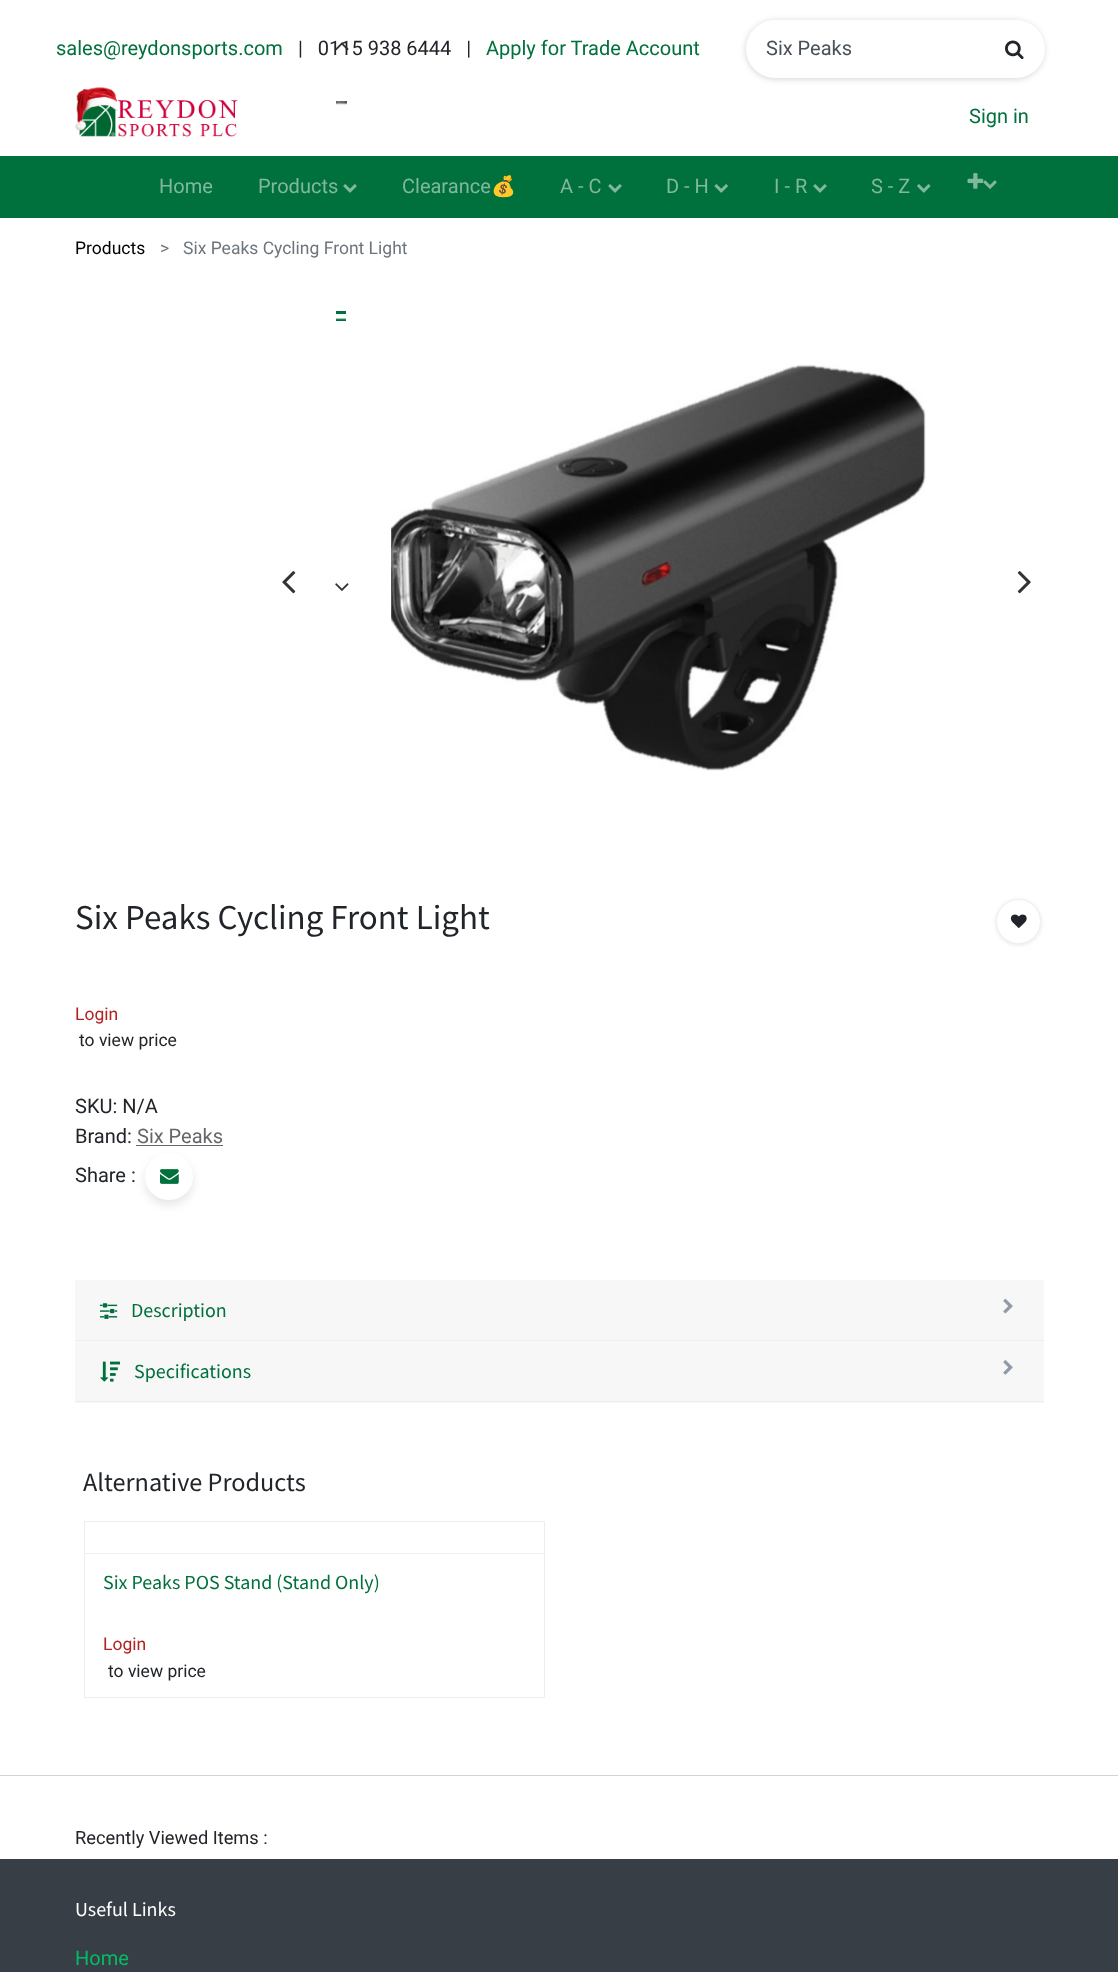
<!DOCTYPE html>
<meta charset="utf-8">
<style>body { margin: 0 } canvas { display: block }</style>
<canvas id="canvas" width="1118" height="1972"></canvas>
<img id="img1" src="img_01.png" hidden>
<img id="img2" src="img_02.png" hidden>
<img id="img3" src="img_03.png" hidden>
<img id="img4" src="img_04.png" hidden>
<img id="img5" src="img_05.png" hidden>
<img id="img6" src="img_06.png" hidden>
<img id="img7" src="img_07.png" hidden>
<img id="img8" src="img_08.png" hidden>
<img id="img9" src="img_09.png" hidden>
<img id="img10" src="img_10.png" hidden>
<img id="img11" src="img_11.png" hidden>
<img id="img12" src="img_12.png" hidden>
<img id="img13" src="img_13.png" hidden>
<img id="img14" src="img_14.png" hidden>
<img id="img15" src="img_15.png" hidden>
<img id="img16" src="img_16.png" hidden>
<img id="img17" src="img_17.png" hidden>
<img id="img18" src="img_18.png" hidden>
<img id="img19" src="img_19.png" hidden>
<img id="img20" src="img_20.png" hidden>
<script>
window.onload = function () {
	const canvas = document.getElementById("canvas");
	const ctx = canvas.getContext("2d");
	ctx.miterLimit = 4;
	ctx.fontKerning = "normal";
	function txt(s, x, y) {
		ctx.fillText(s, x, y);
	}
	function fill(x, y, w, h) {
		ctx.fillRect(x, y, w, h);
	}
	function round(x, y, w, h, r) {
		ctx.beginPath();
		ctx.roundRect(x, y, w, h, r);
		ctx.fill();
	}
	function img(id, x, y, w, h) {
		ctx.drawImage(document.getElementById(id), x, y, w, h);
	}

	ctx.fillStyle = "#FFFFFF";
	fill(0, 0, 1118, 1972);
	ctx.fillStyle = "rgba(32, 33, 36, 0.2)";
	ctx.filter = "blur(3px)";
	ctx.beginPath();
	ctx.roundRect(746, 21, 298, 58, 29);
	ctx.fill();
	ctx.filter = "none";
	ctx.fillStyle = "#FFFFFF";
	round(746, 20, 299, 58, 29);
	img("img1", 1005, 40, 19, 20);
	img("img2", 75, 87, 163, 50);
	ctx.fillStyle = "#00703C";
	fill(0, 156, 1118, 62);
	img("img3", 343, 184, 14, 9);
	img("img3", 608, 184, 14, 9);
	img("img4", 714, 184, 14, 9);
	img("img3", 813, 184, 14, 9);
	img("img5", 917, 184, 14, 9);
	img("img6", 967, 173, 17, 16);
	img("img7", 983, 180, 14, 9);
	img("img8", 335, 42, 14, 9);
	img("img9", 335, 583, 14, 8);
	img("img10", 336, 101, 11, 4);
	ctx.beginPath();
	ctx.moveTo(346, 321);
	ctx.lineTo(336, 321);
	ctx.lineTo(336, 318);
	ctx.lineTo(346, 318);
	ctx.closePath();
	ctx.moveTo(346, 311);
	ctx.lineTo(336, 311);
	ctx.lineTo(336, 314);
	ctx.lineTo(346, 314);
	ctx.closePath();
	ctx.fill("evenodd");
	img("img11", 336, 318, 10, 2);
	img("img12", 391, 364, 535, 407);
	img("img13", 282, 571, 14, 23);
	img("img14", 1017, 571, 14, 23);
	ctx.fillStyle = "rgba(0, 0, 0, 0.1)";
	ctx.filter = "blur(2px)";
	ctx.beginPath();
	ctx.roundRect(996, 900, 45, 45, 22.5);
	ctx.fill();
	ctx.filter = "none";
	ctx.fillStyle = "#FFFFFF";
	ctx.beginPath();
	ctx.arc(1018.5, 921.5, 22, 0, Math.PI * 2);
	ctx.fill();
	ctx.strokeStyle = "#F0F0F0";
	ctx.stroke();
	img("img15", 1010, 914, 17, 14);
	ctx.fillStyle = "rgba(0, 0, 0, 0.1)";
	ctx.filter = "blur(5px)";
	ctx.beginPath();
	ctx.roundRect(145, 1158, 48, 47, 23.5);
	ctx.fill();
	ctx.filter = "none";
	ctx.fillStyle = "#646669";
	fill(136, 1145, 87, 1);
	ctx.fillStyle = "#FFFFFF";
	round(145, 1153, 48, 47, 23.5);
	img("img16", 160, 1169, 19, 15);
	ctx.fillStyle = "#F7F7F7";
	fill(75, 1280, 969, 60);
	ctx.fillStyle = "#EDEDED";
	fill(75, 1340, 969, 1);
	img("img17", 100, 1303, 18, 16);
	img("img18", 1003, 1298, 10, 16);
	ctx.fillStyle = "#F7F7F7";
	fill(75, 1341, 969, 62);
	ctx.fillStyle = "#EDEDED";
	fill(75, 1401, 969, 1);
	img("img19", 100, 1361, 20, 21);
	img("img20", 1003, 1360, 10, 15);
	ctx.strokeStyle = "#EDEDED";
	ctx.strokeRect(84.5, 1521.5, 460, 176);
	ctx.fillStyle = "#EEEEEE";
	fill(85, 1553, 459, 1);
	ctx.fillStyle = "#CED4DA";
	fill(0, 1775, 1118, 1);
	ctx.fillStyle = "#383E45";
	fill(0, 1859, 1118, 113);
	ctx.font = "20px Roboto";
	ctx.fillStyle = "#00703C";
	txt("sales@reydonsports.com", 56, 55);
	ctx.fillStyle = "#212529";
	txt("|   0115 938 6444   |", 298, 55);
	ctx.fillStyle = "#00703C";
	txt("Apply for Trade Account", 486, 55);
	ctx.fillStyle = "#495057";
	txt("Six Peaks", 766, 55);
	ctx.fillStyle = "#00703C";
	txt("Sign in", 969, 123);
	ctx.fillStyle = "#80B89E";
	txt("Home", 159, 193);
	txt("Products", 258, 193);
	txt("Clearance", 402, 193);
	ctx.font = "20px Noto Color Emoji";
	txt("💰", 491, 193);
	ctx.font = "20px Roboto";
	txt("A - C", 560, 193);
	txt("D - H", 666, 193);
	txt("I - R", 774, 193);
	txt("S - Z", 871, 193);
	ctx.font = "17.5px Roboto";
	ctx.fillStyle = "#000000";
	txt("Products", 75, 254);
	ctx.fillStyle = "#6C757D";
	txt(">", 160, 254);
	txt("Six Peaks Cycling Front Light", 183, 254);
	ctx.font = "35px Source Sans Pro";
	ctx.fillStyle = "#212529";
	txt("Six Peaks Cycling Front Light", 75, 929);
	ctx.font = "17.5px Roboto";
	ctx.fillStyle = "#B22222";
	txt("Login", 75, 1020);
	ctx.fillStyle = "#212529";
	txt("to view price", 79, 1046);
	ctx.font = "20px Roboto";
	txt("SKU: N/A", 75, 1113);
	txt("Brand:", 75, 1143);
	ctx.fillStyle = "#646669";
	txt("Six Peaks", 137, 1143);
	ctx.fillStyle = "#212529";
	txt("Share :", 75, 1182);
	ctx.font = "20px Source Sans Pro";
	ctx.fillStyle = "#00703C";
	txt("Description", 131, 1317);
	txt("Specifications", 134, 1378);
	ctx.font = "26.25px Source Sans Pro";
	ctx.fillStyle = "#212529";
	txt("Alternative Products", 83, 1491);
	ctx.font = "20px Source Sans Pro";
	ctx.fillStyle = "#00703C";
	txt("Six Peaks POS Stand (Stand Only)", 103, 1589);
	ctx.font = "17.5px Roboto";
	ctx.fillStyle = "#B22222";
	txt("Login", 103, 1650);
	ctx.fillStyle = "#212529";
	txt("to view price", 108, 1677);
	ctx.font = "18.25px Roboto";
	txt("Recently Viewed Items :", 75, 1844);
	ctx.font = "20px Source Sans Pro";
	ctx.fillStyle = "#FFFFFF";
	txt("Useful Links", 75, 1916);
	ctx.font = "20px Roboto";
	ctx.fillStyle = "#00BD65";
	txt("Home", 75, 1965);
};
</script>
